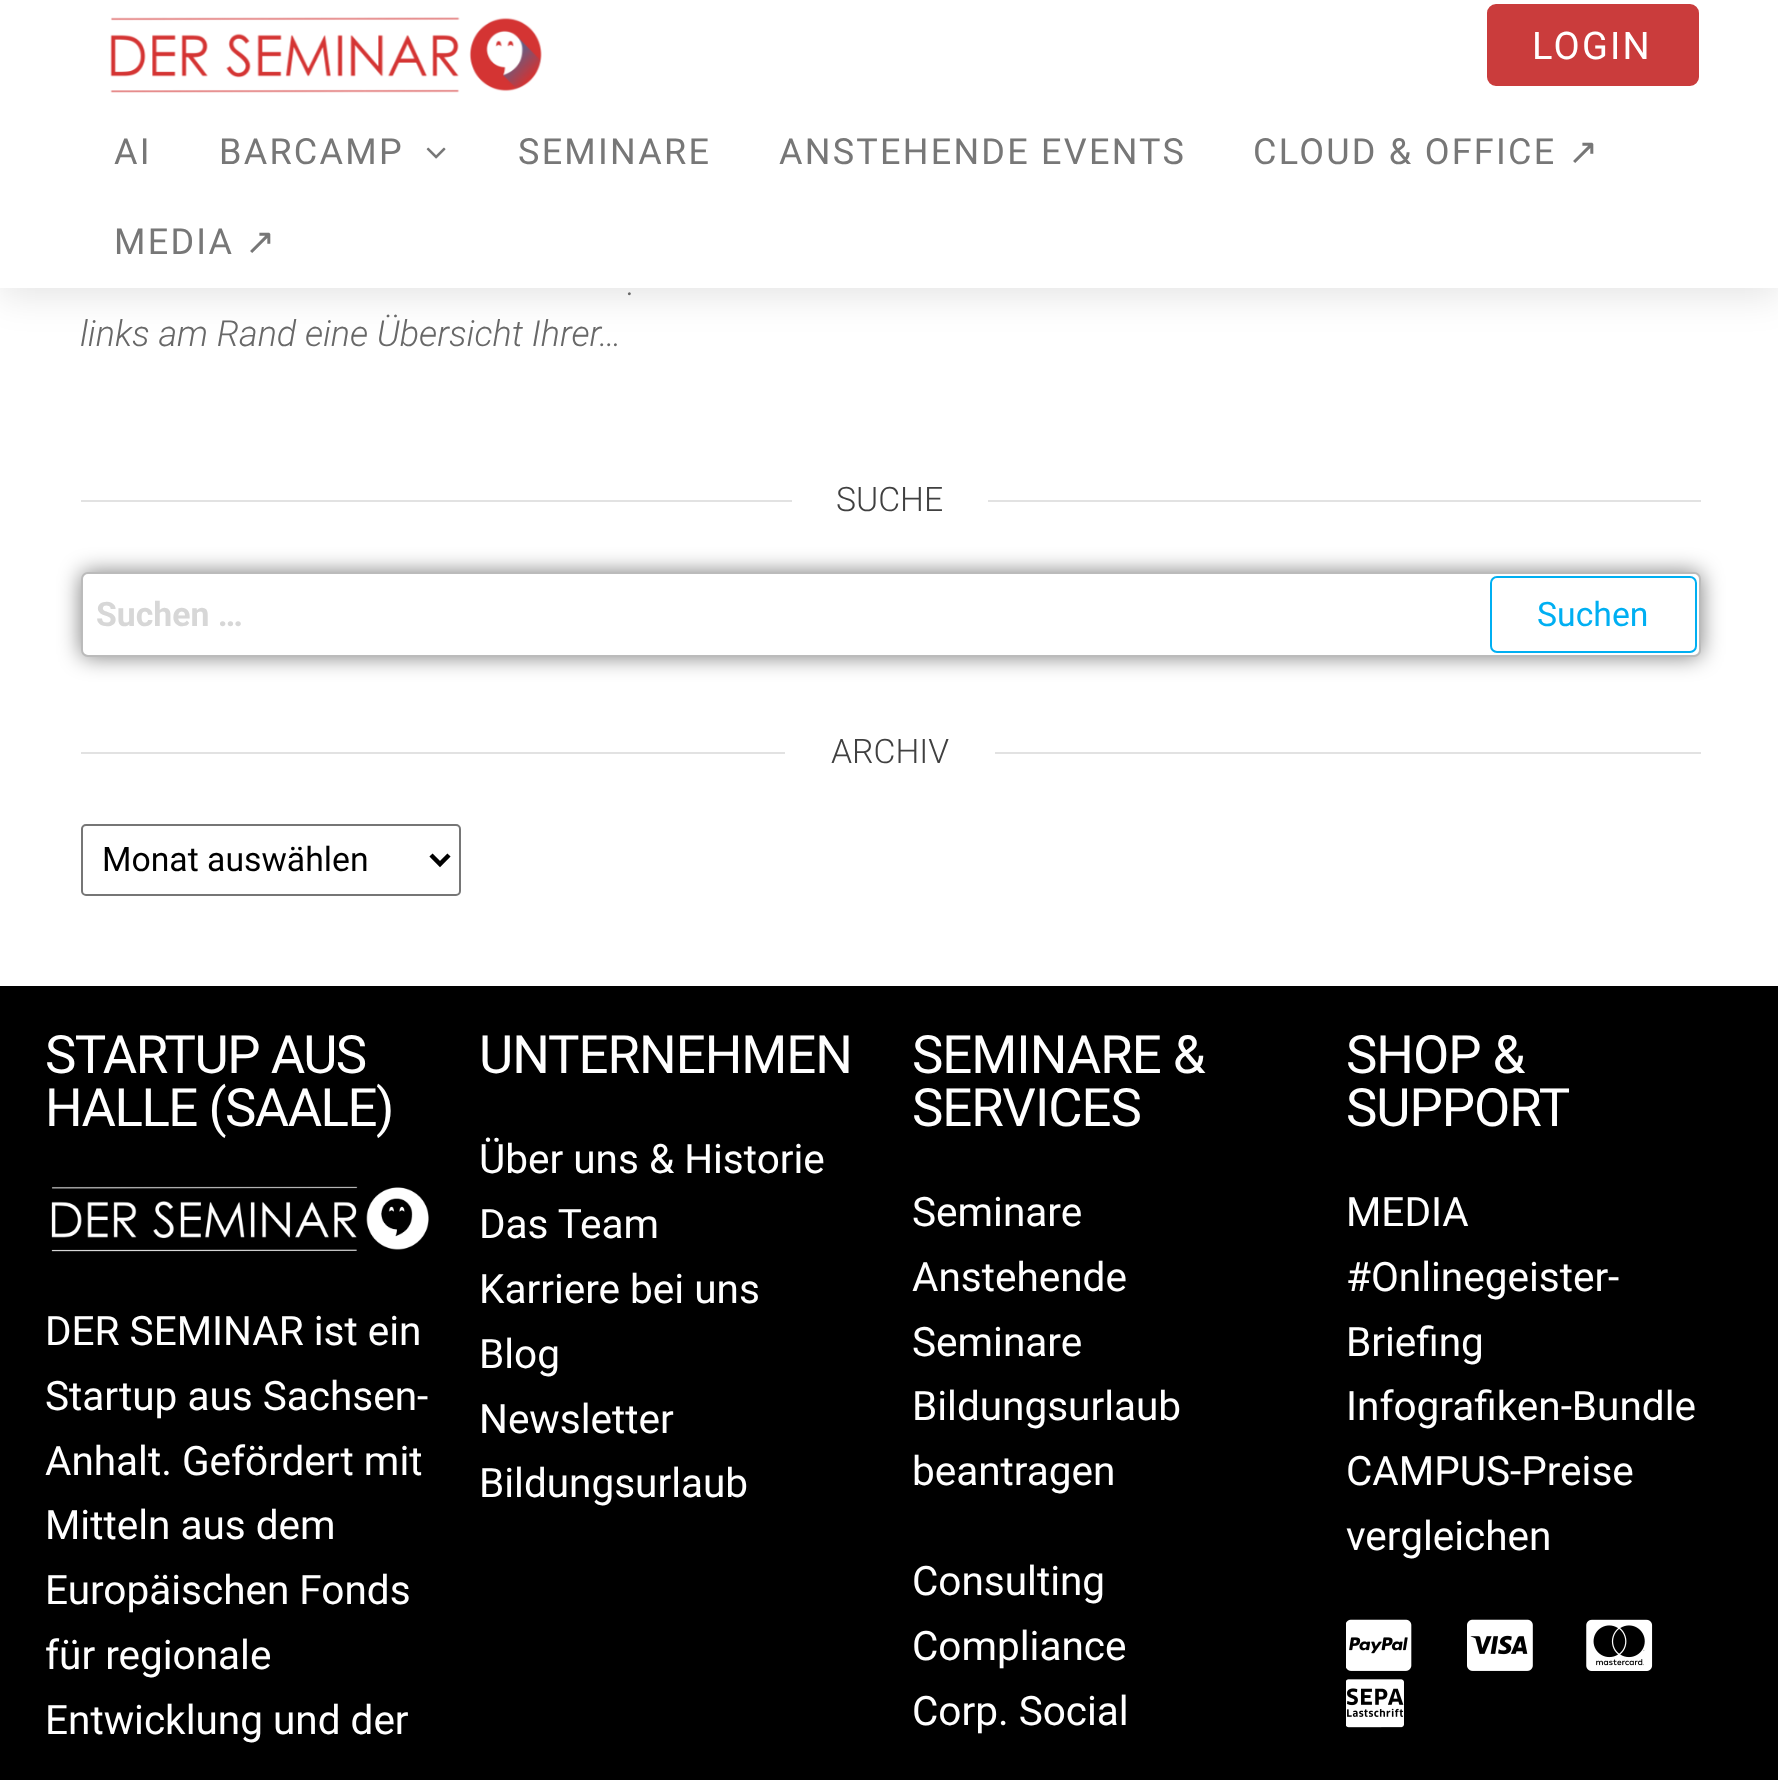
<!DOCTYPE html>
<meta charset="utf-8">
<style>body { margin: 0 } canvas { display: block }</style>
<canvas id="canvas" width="1778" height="1780"></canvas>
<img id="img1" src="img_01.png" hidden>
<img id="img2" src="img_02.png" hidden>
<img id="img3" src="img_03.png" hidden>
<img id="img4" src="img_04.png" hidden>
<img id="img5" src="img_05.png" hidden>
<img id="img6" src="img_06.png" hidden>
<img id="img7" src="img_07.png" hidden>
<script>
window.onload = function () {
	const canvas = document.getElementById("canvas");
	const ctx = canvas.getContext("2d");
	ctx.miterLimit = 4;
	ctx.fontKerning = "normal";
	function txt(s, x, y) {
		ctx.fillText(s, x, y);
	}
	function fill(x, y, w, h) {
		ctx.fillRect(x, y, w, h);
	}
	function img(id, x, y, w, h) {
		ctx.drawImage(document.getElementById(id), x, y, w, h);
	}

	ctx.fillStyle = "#FFFFFF";
	fill(0, 0, 1778, 1780);
	ctx.fillStyle = "rgba(0, 0, 0, 0.1)";
	ctx.filter = "blur(18px)";
	ctx.beginPath();
	ctx.rect(0, 9, 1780, 288);
	ctx.fill();
	ctx.filter = "none";
	ctx.fillStyle = "#FFFFFF";
	fill(0, 0, 1778, 288);
	img("img1", 110, 17, 432, 76);
	ctx.fillStyle = "#CA3C3C";
	ctx.beginPath();
	ctx.roundRect(1486, 3, 214, 84, 10);
	ctx.fill();
	ctx.strokeStyle = "#FFFFFF";
	ctx.lineWidth = 2;
	ctx.stroke();
	img("img2", 426, 147, 20, 12);
	ctx.fillStyle = "#E2E2E2";
	fill(81, 500, 1620, 2);
	ctx.fillStyle = "#FFFFFF";
	fill(792, 500, 196, 2);
	ctx.fillStyle = "rgba(0, 0, 0, 0.5)";
	ctx.filter = "blur(11px)";
	ctx.beginPath();
	ctx.roundRect(81, 572, 1620, 85, 7);
	ctx.fill();
	ctx.filter = "none";
	ctx.fillStyle = "#FFFFFF";
	ctx.beginPath();
	ctx.roundRect(82, 573, 1618, 83, 6);
	ctx.fill();
	ctx.strokeStyle = "#BBBBBB";
	ctx.stroke();
	ctx.beginPath();
	ctx.roundRect(1491, 577, 205, 75, 6);
	ctx.strokeStyle = "#00AFF2";
	ctx.stroke();
	ctx.fillStyle = "#E2E2E2";
	fill(81, 752, 1620, 2);
	ctx.fillStyle = "#FFFFFF";
	fill(785, 752, 210, 2);
	ctx.beginPath();
	ctx.roundRect(82, 825, 378, 70, 4);
	ctx.strokeStyle = "#767676";
	ctx.stroke();
	ctx.beginPath();
	ctx.moveTo(431, 855);
	ctx.lineTo(440, 864);
	ctx.lineTo(449, 855);
	ctx.strokeStyle = "#000000";
	ctx.lineWidth = 4.5;
	ctx.stroke();
	ctx.fillStyle = "#000000";
	fill(0, 986, 1778, 794);
	img("img3", 51, 1186, 378, 66);
	img("img4", 1346, 1619, 66, 52);
	img("img5", 1467, 1619, 66, 52);
	img("img6", 1586, 1619, 67, 52);
	img("img7", 1346, 1679, 58, 49);
	ctx.letterSpacing = "2.25px";
	ctx.font = "38px Roboto";
	ctx.fillStyle = "#FFFFFF";
	txt("LOGIN", 1532, 59);
	ctx.font = "36px Roboto";
	ctx.fillStyle = "#777777";
	txt("AI", 114, 164);
	txt("BARCAMP", 219, 164);
	txt("SEMINARE", 518, 164);
	txt("ANSTEHENDE EVENTS", 779, 164);
	txt("CLOUD & OFFICE", 1253, 164);
	ctx.font = "36px DejaVu Sans";
	txt("↗", 1568, 164);
	ctx.font = "36px Roboto";
	txt("MEDIA", 114, 254);
	ctx.font = "36px DejaVu Sans";
	txt("↗", 245, 254);
	ctx.letterSpacing = "0px";
	ctx.font = "italic 300 36px Roboto";
	ctx.fillStyle = "#686868";
	txt(".", 627, 295);
	txt("links am Rand eine Übersicht Ihrer…", 80, 346);
	ctx.font = "300 33.75px Roboto";
	ctx.fillStyle = "#404040";
	txt("SUCHE", 836, 511);
	ctx.font = "bold 33.75px Roboto";
	ctx.fillStyle = "#D7D7D7";
	txt("Suchen …", 96, 626);
	ctx.font = "33.75px Roboto";
	ctx.fillStyle = "#00AFF2";
	txt("Suchen", 1537, 626);
	ctx.font = "300 33.75px Roboto";
	ctx.fillStyle = "#404040";
	txt("ARCHIV", 831, 763);
	ctx.font = "33.75px Roboto";
	ctx.fillStyle = "#000000";
	txt("Monat auswählen", 102, 871);
	ctx.letterSpacing = "-1.5px";
	ctx.font = "52.75px Roboto";
	ctx.fillStyle = "#FFFFFF";
	txt("STARTUP AUS", 45, 1073);
	txt("HALLE (SAALE)", 45, 1126);
	ctx.letterSpacing = "0px";
	ctx.font = "40.5px Roboto";
	txt("DER SEMINAR ist ein", 45, 1345);
	txt("Startup aus Sachsen-", 45, 1410);
	txt("Anhalt. Gefördert mit", 45, 1475);
	txt("Mitteln aus dem", 45, 1539);
	txt("Europäischen Fonds", 45, 1604);
	txt("für regionale", 45, 1669);
	txt("Entwicklung und der", 45, 1734);
	ctx.letterSpacing = "-1px";
	ctx.font = "52.75px Roboto";
	txt("UNTERNEHMEN", 479, 1073);
	ctx.letterSpacing = "0px";
	ctx.font = "40.5px Roboto";
	txt("Über uns & Historie", 479, 1173);
	txt("Das Team", 479, 1238);
	txt("Karriere bei uns", 479, 1303);
	txt("Blog", 479, 1368);
	txt("Newsletter", 479, 1433);
	txt("Bildungsurlaub", 479, 1497);
	ctx.letterSpacing = "-1px";
	ctx.font = "52.75px Roboto";
	txt("SEMINARE &", 912, 1073);
	txt("SERVICES", 912, 1126);
	ctx.letterSpacing = "0px";
	ctx.font = "40.5px Roboto";
	txt("Seminare", 912, 1226);
	txt("Anstehende", 912, 1291);
	txt("Seminare", 912, 1356);
	txt("Bildungsurlaub", 912, 1420);
	txt("beantragen", 912, 1485);
	txt("Consulting", 912, 1595);
	txt("Compliance", 912, 1660);
	txt("Corp. Social", 912, 1725);
	ctx.letterSpacing = "-1px";
	ctx.font = "52.75px Roboto";
	txt("SHOP &", 1346, 1073);
	txt("SUPPORT", 1346, 1126);
	ctx.letterSpacing = "0px";
	ctx.font = "40.5px Roboto";
	txt("MEDIA", 1346, 1226);
	txt("#Onlinegeister-", 1346, 1291);
	txt("Briefing", 1346, 1356);
	txt("Infografiken-Bundle", 1346, 1420);
	txt("CAMPUS-Preise", 1346, 1485);
	txt("vergleichen", 1346, 1550);
};
</script>
